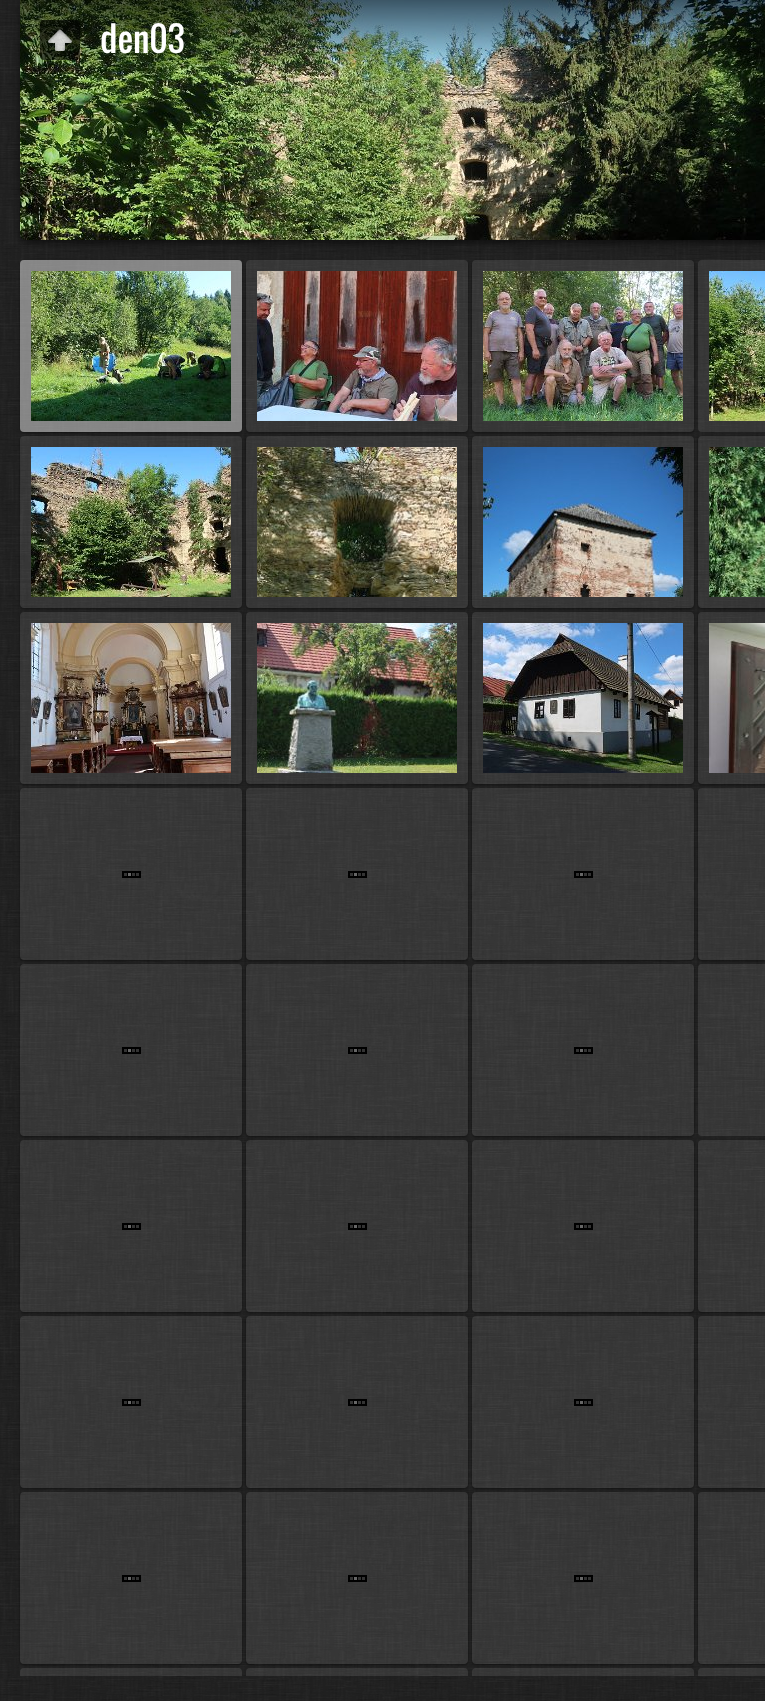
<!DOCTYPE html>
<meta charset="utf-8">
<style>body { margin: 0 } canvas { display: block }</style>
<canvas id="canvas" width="765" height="1701"></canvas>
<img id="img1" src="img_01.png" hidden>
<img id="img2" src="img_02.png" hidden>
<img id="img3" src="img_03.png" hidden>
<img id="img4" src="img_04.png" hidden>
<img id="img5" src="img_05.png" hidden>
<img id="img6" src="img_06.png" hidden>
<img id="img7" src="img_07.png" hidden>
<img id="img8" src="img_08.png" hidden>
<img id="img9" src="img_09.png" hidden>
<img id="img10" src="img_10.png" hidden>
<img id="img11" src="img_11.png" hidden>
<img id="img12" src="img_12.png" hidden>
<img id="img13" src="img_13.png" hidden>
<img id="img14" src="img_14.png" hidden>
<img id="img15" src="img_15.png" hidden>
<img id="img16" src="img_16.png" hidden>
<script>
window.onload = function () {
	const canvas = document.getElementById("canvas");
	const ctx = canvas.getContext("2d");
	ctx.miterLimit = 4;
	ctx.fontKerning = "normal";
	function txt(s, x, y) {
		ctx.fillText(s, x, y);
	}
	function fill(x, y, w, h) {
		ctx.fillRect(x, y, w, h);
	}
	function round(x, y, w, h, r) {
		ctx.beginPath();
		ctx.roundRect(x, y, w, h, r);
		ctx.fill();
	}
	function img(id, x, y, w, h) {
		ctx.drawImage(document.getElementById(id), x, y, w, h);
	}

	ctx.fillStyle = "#222222";
	fill(0, 0, 765, 1701);
	img("img1", 0, 0, 765, 1701);
	ctx.fillStyle = "rgba(0, 0, 0, 0.6)";
	ctx.filter = "blur(4px)";
	ctx.beginPath();
	ctx.roundRect(21, 3, 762, 240, 6);
	ctx.fill();
	ctx.filter = "none";
	img("img2", 20, 0, 745, 240);
	round(40, 20, 40, 40, 4);
	img("img3", 48, 29, 24, 22);
	ctx.save();
	ctx.beginPath();
	ctx.moveTo(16, 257);
	ctx.lineTo(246, 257);
	ctx.lineTo(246, 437);
	ctx.lineTo(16, 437);
	ctx.closePath();
	ctx.moveTo(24, 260);
	ctx.lineTo(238, 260);
	ctx.bezierCurveTo(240, 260, 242, 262, 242, 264);
	ctx.lineTo(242, 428);
	ctx.bezierCurveTo(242, 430, 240, 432, 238, 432);
	ctx.lineTo(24, 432);
	ctx.bezierCurveTo(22, 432, 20, 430, 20, 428);
	ctx.lineTo(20, 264);
	ctx.bezierCurveTo(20, 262, 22, 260, 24, 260);
	ctx.closePath();
	ctx.clip("evenodd");
	ctx.fillStyle = "rgba(0, 0, 0, 0.4)";
	ctx.filter = "blur(1px)";
	ctx.beginPath();
	ctx.roundRect(20, 261, 222, 172, 4);
	ctx.fill();
	ctx.filter = "none";
	ctx.restore();
	ctx.fillStyle = "rgba(255, 255, 255, 0.1)";
	round(20, 260, 222, 172, 4);
	ctx.fillStyle = "rgba(255, 255, 255, 0.4)";
	round(20, 260, 222, 172, 4);
	img("img4", 31, 271, 200, 150);
	ctx.save();
	ctx.beginPath();
	ctx.moveTo(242, 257);
	ctx.lineTo(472, 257);
	ctx.lineTo(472, 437);
	ctx.lineTo(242, 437);
	ctx.closePath();
	ctx.moveTo(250, 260);
	ctx.lineTo(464, 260);
	ctx.bezierCurveTo(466, 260, 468, 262, 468, 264);
	ctx.lineTo(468, 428);
	ctx.bezierCurveTo(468, 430, 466, 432, 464, 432);
	ctx.lineTo(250, 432);
	ctx.bezierCurveTo(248, 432, 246, 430, 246, 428);
	ctx.lineTo(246, 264);
	ctx.bezierCurveTo(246, 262, 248, 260, 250, 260);
	ctx.closePath();
	ctx.clip("evenodd");
	ctx.fillStyle = "rgba(0, 0, 0, 0.4)";
	ctx.filter = "blur(1px)";
	ctx.beginPath();
	ctx.roundRect(246, 261, 222, 172, 4);
	ctx.fill();
	ctx.filter = "none";
	ctx.restore();
	ctx.fillStyle = "rgba(255, 255, 255, 0.1)";
	round(246, 260, 222, 172, 4);
	img("img5", 257, 271, 200, 150);
	ctx.save();
	ctx.beginPath();
	ctx.moveTo(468, 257);
	ctx.lineTo(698, 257);
	ctx.lineTo(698, 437);
	ctx.lineTo(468, 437);
	ctx.closePath();
	ctx.moveTo(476, 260);
	ctx.lineTo(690, 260);
	ctx.bezierCurveTo(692, 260, 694, 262, 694, 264);
	ctx.lineTo(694, 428);
	ctx.bezierCurveTo(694, 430, 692, 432, 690, 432);
	ctx.lineTo(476, 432);
	ctx.bezierCurveTo(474, 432, 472, 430, 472, 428);
	ctx.lineTo(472, 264);
	ctx.bezierCurveTo(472, 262, 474, 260, 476, 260);
	ctx.closePath();
	ctx.clip("evenodd");
	ctx.fillStyle = "rgba(0, 0, 0, 0.4)";
	ctx.filter = "blur(1px)";
	ctx.beginPath();
	ctx.roundRect(472, 261, 222, 172, 4);
	ctx.fill();
	ctx.filter = "none";
	ctx.restore();
	round(472, 260, 222, 172, 4);
	img("img6", 483, 271, 200, 150);
	ctx.beginPath();
	ctx.roundRect(698, 260, 67, 172, [4, 0, 0, 4]);
	ctx.fill();
	img("img7", 709, 271, 56, 150);
	ctx.save();
	ctx.beginPath();
	ctx.moveTo(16, 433);
	ctx.lineTo(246, 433);
	ctx.lineTo(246, 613);
	ctx.lineTo(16, 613);
	ctx.closePath();
	ctx.moveTo(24, 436);
	ctx.lineTo(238, 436);
	ctx.bezierCurveTo(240, 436, 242, 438, 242, 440);
	ctx.lineTo(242, 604);
	ctx.bezierCurveTo(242, 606, 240, 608, 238, 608);
	ctx.lineTo(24, 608);
	ctx.bezierCurveTo(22, 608, 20, 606, 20, 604);
	ctx.lineTo(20, 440);
	ctx.bezierCurveTo(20, 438, 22, 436, 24, 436);
	ctx.closePath();
	ctx.clip("evenodd");
	ctx.fillStyle = "rgba(0, 0, 0, 0.4)";
	ctx.filter = "blur(1px)";
	ctx.beginPath();
	ctx.roundRect(20, 437, 222, 172, 4);
	ctx.fill();
	ctx.filter = "none";
	ctx.restore();
	round(20, 436, 222, 172, 4);
	img("img8", 31, 447, 200, 150);
	ctx.save();
	ctx.beginPath();
	ctx.moveTo(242, 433);
	ctx.lineTo(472, 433);
	ctx.lineTo(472, 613);
	ctx.lineTo(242, 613);
	ctx.closePath();
	ctx.moveTo(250, 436);
	ctx.lineTo(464, 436);
	ctx.bezierCurveTo(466, 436, 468, 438, 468, 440);
	ctx.lineTo(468, 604);
	ctx.bezierCurveTo(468, 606, 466, 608, 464, 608);
	ctx.lineTo(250, 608);
	ctx.bezierCurveTo(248, 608, 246, 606, 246, 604);
	ctx.lineTo(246, 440);
	ctx.bezierCurveTo(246, 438, 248, 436, 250, 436);
	ctx.closePath();
	ctx.clip("evenodd");
	ctx.fillStyle = "rgba(0, 0, 0, 0.4)";
	ctx.filter = "blur(1px)";
	ctx.beginPath();
	ctx.roundRect(246, 437, 222, 172, 4);
	ctx.fill();
	ctx.filter = "none";
	ctx.restore();
	round(246, 436, 222, 172, 4);
	img("img9", 257, 447, 200, 150);
	ctx.save();
	ctx.beginPath();
	ctx.moveTo(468, 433);
	ctx.lineTo(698, 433);
	ctx.lineTo(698, 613);
	ctx.lineTo(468, 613);
	ctx.closePath();
	ctx.moveTo(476, 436);
	ctx.lineTo(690, 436);
	ctx.bezierCurveTo(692, 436, 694, 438, 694, 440);
	ctx.lineTo(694, 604);
	ctx.bezierCurveTo(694, 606, 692, 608, 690, 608);
	ctx.lineTo(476, 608);
	ctx.bezierCurveTo(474, 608, 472, 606, 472, 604);
	ctx.lineTo(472, 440);
	ctx.bezierCurveTo(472, 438, 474, 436, 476, 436);
	ctx.closePath();
	ctx.clip("evenodd");
	ctx.fillStyle = "rgba(0, 0, 0, 0.4)";
	ctx.filter = "blur(1px)";
	ctx.beginPath();
	ctx.roundRect(472, 437, 222, 172, 4);
	ctx.fill();
	ctx.filter = "none";
	ctx.restore();
	round(472, 436, 222, 172, 4);
	img("img10", 483, 447, 200, 150);
	ctx.save();
	ctx.beginPath();
	ctx.moveTo(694, 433);
	ctx.lineTo(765, 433);
	ctx.lineTo(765, 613);
	ctx.lineTo(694, 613);
	ctx.closePath();
	ctx.moveTo(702, 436);
	ctx.lineTo(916, 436);
	ctx.bezierCurveTo(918, 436, 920, 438, 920, 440);
	ctx.lineTo(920, 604);
	ctx.bezierCurveTo(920, 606, 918, 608, 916, 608);
	ctx.lineTo(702, 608);
	ctx.bezierCurveTo(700, 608, 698, 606, 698, 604);
	ctx.lineTo(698, 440);
	ctx.bezierCurveTo(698, 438, 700, 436, 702, 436);
	ctx.closePath();
	ctx.clip("evenodd");
	ctx.fillStyle = "rgba(0, 0, 0, 0.4)";
	ctx.filter = "blur(1px)";
	ctx.beginPath();
	ctx.roundRect(698, 437, 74, 172, 4);
	ctx.fill();
	ctx.filter = "none";
	ctx.restore();
	ctx.beginPath();
	ctx.roundRect(698, 436, 67, 172, [4, 0, 0, 4]);
	ctx.fill();
	img("img11", 709, 447, 56, 150);
	ctx.save();
	ctx.beginPath();
	ctx.moveTo(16, 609);
	ctx.lineTo(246, 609);
	ctx.lineTo(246, 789);
	ctx.lineTo(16, 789);
	ctx.closePath();
	ctx.moveTo(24, 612);
	ctx.lineTo(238, 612);
	ctx.bezierCurveTo(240, 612, 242, 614, 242, 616);
	ctx.lineTo(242, 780);
	ctx.bezierCurveTo(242, 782, 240, 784, 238, 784);
	ctx.lineTo(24, 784);
	ctx.bezierCurveTo(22, 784, 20, 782, 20, 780);
	ctx.lineTo(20, 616);
	ctx.bezierCurveTo(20, 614, 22, 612, 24, 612);
	ctx.closePath();
	ctx.clip("evenodd");
	ctx.fillStyle = "rgba(0, 0, 0, 0.4)";
	ctx.filter = "blur(1px)";
	ctx.beginPath();
	ctx.roundRect(20, 613, 222, 172, 4);
	ctx.fill();
	ctx.filter = "none";
	ctx.restore();
	round(20, 612, 222, 172, 4);
	img("img12", 31, 623, 200, 150);
	ctx.save();
	ctx.beginPath();
	ctx.moveTo(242, 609);
	ctx.lineTo(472, 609);
	ctx.lineTo(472, 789);
	ctx.lineTo(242, 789);
	ctx.closePath();
	ctx.moveTo(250, 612);
	ctx.lineTo(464, 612);
	ctx.bezierCurveTo(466, 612, 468, 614, 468, 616);
	ctx.lineTo(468, 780);
	ctx.bezierCurveTo(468, 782, 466, 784, 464, 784);
	ctx.lineTo(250, 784);
	ctx.bezierCurveTo(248, 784, 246, 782, 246, 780);
	ctx.lineTo(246, 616);
	ctx.bezierCurveTo(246, 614, 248, 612, 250, 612);
	ctx.closePath();
	ctx.clip("evenodd");
	ctx.fillStyle = "rgba(0, 0, 0, 0.4)";
	ctx.filter = "blur(1px)";
	ctx.beginPath();
	ctx.roundRect(246, 613, 222, 172, 4);
	ctx.fill();
	ctx.filter = "none";
	ctx.restore();
	round(246, 612, 222, 172, 4);
	img("img13", 257, 623, 200, 150);
	ctx.save();
	ctx.beginPath();
	ctx.moveTo(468, 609);
	ctx.lineTo(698, 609);
	ctx.lineTo(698, 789);
	ctx.lineTo(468, 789);
	ctx.closePath();
	ctx.moveTo(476, 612);
	ctx.lineTo(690, 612);
	ctx.bezierCurveTo(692, 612, 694, 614, 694, 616);
	ctx.lineTo(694, 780);
	ctx.bezierCurveTo(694, 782, 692, 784, 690, 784);
	ctx.lineTo(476, 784);
	ctx.bezierCurveTo(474, 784, 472, 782, 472, 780);
	ctx.lineTo(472, 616);
	ctx.bezierCurveTo(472, 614, 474, 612, 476, 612);
	ctx.closePath();
	ctx.clip("evenodd");
	ctx.fillStyle = "rgba(0, 0, 0, 0.4)";
	ctx.filter = "blur(1px)";
	ctx.beginPath();
	ctx.roundRect(472, 613, 222, 172, 4);
	ctx.fill();
	ctx.filter = "none";
	ctx.restore();
	round(472, 612, 222, 172, 4);
	img("img14", 483, 623, 200, 150);
	ctx.save();
	ctx.beginPath();
	ctx.moveTo(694, 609);
	ctx.lineTo(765, 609);
	ctx.lineTo(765, 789);
	ctx.lineTo(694, 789);
	ctx.closePath();
	ctx.moveTo(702, 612);
	ctx.lineTo(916, 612);
	ctx.bezierCurveTo(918, 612, 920, 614, 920, 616);
	ctx.lineTo(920, 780);
	ctx.bezierCurveTo(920, 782, 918, 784, 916, 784);
	ctx.lineTo(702, 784);
	ctx.bezierCurveTo(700, 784, 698, 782, 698, 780);
	ctx.lineTo(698, 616);
	ctx.bezierCurveTo(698, 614, 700, 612, 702, 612);
	ctx.closePath();
	ctx.clip("evenodd");
	ctx.fillStyle = "rgba(0, 0, 0, 0.4)";
	ctx.filter = "blur(1px)";
	ctx.beginPath();
	ctx.roundRect(698, 613, 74, 172, 4);
	ctx.fill();
	ctx.filter = "none";
	ctx.restore();
	ctx.beginPath();
	ctx.roundRect(698, 612, 67, 172, [4, 0, 0, 4]);
	ctx.fill();
	img("img15", 709, 623, 56, 150);
	ctx.save();
	ctx.beginPath();
	ctx.moveTo(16, 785);
	ctx.lineTo(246, 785);
	ctx.lineTo(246, 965);
	ctx.lineTo(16, 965);
	ctx.closePath();
	ctx.moveTo(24, 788);
	ctx.lineTo(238, 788);
	ctx.bezierCurveTo(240, 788, 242, 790, 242, 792);
	ctx.lineTo(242, 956);
	ctx.bezierCurveTo(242, 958, 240, 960, 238, 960);
	ctx.lineTo(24, 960);
	ctx.bezierCurveTo(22, 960, 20, 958, 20, 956);
	ctx.lineTo(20, 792);
	ctx.bezierCurveTo(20, 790, 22, 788, 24, 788);
	ctx.closePath();
	ctx.clip("evenodd");
	ctx.fillStyle = "rgba(0, 0, 0, 0.4)";
	ctx.filter = "blur(1px)";
	ctx.beginPath();
	ctx.roundRect(20, 789, 222, 172, 4);
	ctx.fill();
	ctx.filter = "none";
	ctx.restore();
	round(20, 788, 222, 172, 4);
	img("img16", 122, 871, 19, 7);
	ctx.save();
	ctx.beginPath();
	ctx.moveTo(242, 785);
	ctx.lineTo(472, 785);
	ctx.lineTo(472, 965);
	ctx.lineTo(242, 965);
	ctx.closePath();
	ctx.moveTo(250, 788);
	ctx.lineTo(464, 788);
	ctx.bezierCurveTo(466, 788, 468, 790, 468, 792);
	ctx.lineTo(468, 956);
	ctx.bezierCurveTo(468, 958, 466, 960, 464, 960);
	ctx.lineTo(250, 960);
	ctx.bezierCurveTo(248, 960, 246, 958, 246, 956);
	ctx.lineTo(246, 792);
	ctx.bezierCurveTo(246, 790, 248, 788, 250, 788);
	ctx.closePath();
	ctx.clip("evenodd");
	ctx.fillStyle = "rgba(0, 0, 0, 0.4)";
	ctx.filter = "blur(1px)";
	ctx.beginPath();
	ctx.roundRect(246, 789, 222, 172, 4);
	ctx.fill();
	ctx.filter = "none";
	ctx.restore();
	round(246, 788, 222, 172, 4);
	img("img16", 348, 871, 19, 7);
	ctx.save();
	ctx.beginPath();
	ctx.moveTo(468, 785);
	ctx.lineTo(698, 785);
	ctx.lineTo(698, 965);
	ctx.lineTo(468, 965);
	ctx.closePath();
	ctx.moveTo(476, 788);
	ctx.lineTo(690, 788);
	ctx.bezierCurveTo(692, 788, 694, 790, 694, 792);
	ctx.lineTo(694, 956);
	ctx.bezierCurveTo(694, 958, 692, 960, 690, 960);
	ctx.lineTo(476, 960);
	ctx.bezierCurveTo(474, 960, 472, 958, 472, 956);
	ctx.lineTo(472, 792);
	ctx.bezierCurveTo(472, 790, 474, 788, 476, 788);
	ctx.closePath();
	ctx.clip("evenodd");
	ctx.fillStyle = "rgba(0, 0, 0, 0.4)";
	ctx.filter = "blur(1px)";
	ctx.beginPath();
	ctx.roundRect(472, 789, 222, 172, 4);
	ctx.fill();
	ctx.filter = "none";
	ctx.restore();
	round(472, 788, 222, 172, 4);
	img("img16", 574, 871, 19, 7);
	ctx.save();
	ctx.beginPath();
	ctx.moveTo(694, 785);
	ctx.lineTo(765, 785);
	ctx.lineTo(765, 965);
	ctx.lineTo(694, 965);
	ctx.closePath();
	ctx.moveTo(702, 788);
	ctx.lineTo(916, 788);
	ctx.bezierCurveTo(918, 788, 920, 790, 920, 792);
	ctx.lineTo(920, 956);
	ctx.bezierCurveTo(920, 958, 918, 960, 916, 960);
	ctx.lineTo(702, 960);
	ctx.bezierCurveTo(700, 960, 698, 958, 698, 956);
	ctx.lineTo(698, 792);
	ctx.bezierCurveTo(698, 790, 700, 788, 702, 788);
	ctx.closePath();
	ctx.clip("evenodd");
	ctx.fillStyle = "rgba(0, 0, 0, 0.4)";
	ctx.filter = "blur(1px)";
	ctx.beginPath();
	ctx.roundRect(698, 789, 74, 172, 4);
	ctx.fill();
	ctx.filter = "none";
	ctx.restore();
	ctx.beginPath();
	ctx.roundRect(698, 788, 67, 172, [4, 0, 0, 4]);
	ctx.fill();
	ctx.save();
	ctx.beginPath();
	ctx.moveTo(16, 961);
	ctx.lineTo(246, 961);
	ctx.lineTo(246, 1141);
	ctx.lineTo(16, 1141);
	ctx.closePath();
	ctx.moveTo(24, 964);
	ctx.lineTo(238, 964);
	ctx.bezierCurveTo(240, 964, 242, 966, 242, 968);
	ctx.lineTo(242, 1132);
	ctx.bezierCurveTo(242, 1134, 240, 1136, 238, 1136);
	ctx.lineTo(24, 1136);
	ctx.bezierCurveTo(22, 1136, 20, 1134, 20, 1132);
	ctx.lineTo(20, 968);
	ctx.bezierCurveTo(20, 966, 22, 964, 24, 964);
	ctx.closePath();
	ctx.clip("evenodd");
	ctx.fillStyle = "rgba(0, 0, 0, 0.4)";
	ctx.filter = "blur(1px)";
	ctx.beginPath();
	ctx.roundRect(20, 965, 222, 172, 4);
	ctx.fill();
	ctx.filter = "none";
	ctx.restore();
	round(20, 964, 222, 172, 4);
	img("img16", 122, 1047, 19, 7);
	ctx.save();
	ctx.beginPath();
	ctx.moveTo(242, 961);
	ctx.lineTo(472, 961);
	ctx.lineTo(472, 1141);
	ctx.lineTo(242, 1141);
	ctx.closePath();
	ctx.moveTo(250, 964);
	ctx.lineTo(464, 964);
	ctx.bezierCurveTo(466, 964, 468, 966, 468, 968);
	ctx.lineTo(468, 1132);
	ctx.bezierCurveTo(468, 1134, 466, 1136, 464, 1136);
	ctx.lineTo(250, 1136);
	ctx.bezierCurveTo(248, 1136, 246, 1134, 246, 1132);
	ctx.lineTo(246, 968);
	ctx.bezierCurveTo(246, 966, 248, 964, 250, 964);
	ctx.closePath();
	ctx.clip("evenodd");
	ctx.fillStyle = "rgba(0, 0, 0, 0.4)";
	ctx.filter = "blur(1px)";
	ctx.beginPath();
	ctx.roundRect(246, 965, 222, 172, 4);
	ctx.fill();
	ctx.filter = "none";
	ctx.restore();
	round(246, 964, 222, 172, 4);
	img("img16", 348, 1047, 19, 7);
	ctx.save();
	ctx.beginPath();
	ctx.moveTo(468, 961);
	ctx.lineTo(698, 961);
	ctx.lineTo(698, 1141);
	ctx.lineTo(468, 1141);
	ctx.closePath();
	ctx.moveTo(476, 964);
	ctx.lineTo(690, 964);
	ctx.bezierCurveTo(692, 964, 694, 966, 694, 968);
	ctx.lineTo(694, 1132);
	ctx.bezierCurveTo(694, 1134, 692, 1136, 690, 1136);
	ctx.lineTo(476, 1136);
	ctx.bezierCurveTo(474, 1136, 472, 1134, 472, 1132);
	ctx.lineTo(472, 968);
	ctx.bezierCurveTo(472, 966, 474, 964, 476, 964);
	ctx.closePath();
	ctx.clip("evenodd");
	ctx.fillStyle = "rgba(0, 0, 0, 0.4)";
	ctx.filter = "blur(1px)";
	ctx.beginPath();
	ctx.roundRect(472, 965, 222, 172, 4);
	ctx.fill();
	ctx.filter = "none";
	ctx.restore();
	round(472, 964, 222, 172, 4);
	img("img16", 574, 1047, 19, 7);
	ctx.beginPath();
	ctx.roundRect(698, 964, 67, 172, [4, 0, 0, 4]);
	ctx.fill();
	ctx.save();
	ctx.beginPath();
	ctx.moveTo(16, 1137);
	ctx.lineTo(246, 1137);
	ctx.lineTo(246, 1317);
	ctx.lineTo(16, 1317);
	ctx.closePath();
	ctx.moveTo(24, 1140);
	ctx.lineTo(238, 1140);
	ctx.bezierCurveTo(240, 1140, 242, 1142, 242, 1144);
	ctx.lineTo(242, 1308);
	ctx.bezierCurveTo(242, 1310, 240, 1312, 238, 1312);
	ctx.lineTo(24, 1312);
	ctx.bezierCurveTo(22, 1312, 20, 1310, 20, 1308);
	ctx.lineTo(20, 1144);
	ctx.bezierCurveTo(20, 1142, 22, 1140, 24, 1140);
	ctx.closePath();
	ctx.clip("evenodd");
	ctx.fillStyle = "rgba(0, 0, 0, 0.4)";
	ctx.filter = "blur(1px)";
	ctx.beginPath();
	ctx.roundRect(20, 1141, 222, 172, 4);
	ctx.fill();
	ctx.filter = "none";
	ctx.restore();
	round(20, 1140, 222, 172, 4);
	img("img16", 122, 1223, 19, 7);
	ctx.save();
	ctx.beginPath();
	ctx.moveTo(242, 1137);
	ctx.lineTo(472, 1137);
	ctx.lineTo(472, 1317);
	ctx.lineTo(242, 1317);
	ctx.closePath();
	ctx.moveTo(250, 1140);
	ctx.lineTo(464, 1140);
	ctx.bezierCurveTo(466, 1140, 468, 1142, 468, 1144);
	ctx.lineTo(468, 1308);
	ctx.bezierCurveTo(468, 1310, 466, 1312, 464, 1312);
	ctx.lineTo(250, 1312);
	ctx.bezierCurveTo(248, 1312, 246, 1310, 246, 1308);
	ctx.lineTo(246, 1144);
	ctx.bezierCurveTo(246, 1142, 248, 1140, 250, 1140);
	ctx.closePath();
	ctx.clip("evenodd");
	ctx.fillStyle = "rgba(0, 0, 0, 0.4)";
	ctx.filter = "blur(1px)";
	ctx.beginPath();
	ctx.roundRect(246, 1141, 222, 172, 4);
	ctx.fill();
	ctx.filter = "none";
	ctx.restore();
	round(246, 1140, 222, 172, 4);
	img("img16", 348, 1223, 19, 7);
	ctx.save();
	ctx.beginPath();
	ctx.moveTo(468, 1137);
	ctx.lineTo(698, 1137);
	ctx.lineTo(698, 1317);
	ctx.lineTo(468, 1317);
	ctx.closePath();
	ctx.moveTo(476, 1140);
	ctx.lineTo(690, 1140);
	ctx.bezierCurveTo(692, 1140, 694, 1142, 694, 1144);
	ctx.lineTo(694, 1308);
	ctx.bezierCurveTo(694, 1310, 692, 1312, 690, 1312);
	ctx.lineTo(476, 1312);
	ctx.bezierCurveTo(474, 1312, 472, 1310, 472, 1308);
	ctx.lineTo(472, 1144);
	ctx.bezierCurveTo(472, 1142, 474, 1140, 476, 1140);
	ctx.closePath();
	ctx.clip("evenodd");
	ctx.fillStyle = "rgba(0, 0, 0, 0.4)";
	ctx.filter = "blur(1px)";
	ctx.beginPath();
	ctx.roundRect(472, 1141, 222, 172, 4);
	ctx.fill();
	ctx.filter = "none";
	ctx.restore();
	round(472, 1140, 222, 172, 4);
	img("img16", 574, 1223, 19, 7);
	ctx.save();
	ctx.beginPath();
	ctx.moveTo(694, 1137);
	ctx.lineTo(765, 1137);
	ctx.lineTo(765, 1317);
	ctx.lineTo(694, 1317);
	ctx.closePath();
	ctx.moveTo(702, 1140);
	ctx.lineTo(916, 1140);
	ctx.bezierCurveTo(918, 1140, 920, 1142, 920, 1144);
	ctx.lineTo(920, 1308);
	ctx.bezierCurveTo(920, 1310, 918, 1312, 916, 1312);
	ctx.lineTo(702, 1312);
	ctx.bezierCurveTo(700, 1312, 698, 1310, 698, 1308);
	ctx.lineTo(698, 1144);
	ctx.bezierCurveTo(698, 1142, 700, 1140, 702, 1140);
	ctx.closePath();
	ctx.clip("evenodd");
	ctx.fillStyle = "rgba(0, 0, 0, 0.4)";
	ctx.filter = "blur(1px)";
	ctx.beginPath();
	ctx.roundRect(698, 1141, 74, 172, 4);
	ctx.fill();
	ctx.filter = "none";
	ctx.restore();
	ctx.beginPath();
	ctx.roundRect(698, 1140, 67, 172, [4, 0, 0, 4]);
	ctx.fill();
	ctx.save();
	ctx.beginPath();
	ctx.moveTo(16, 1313);
	ctx.lineTo(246, 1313);
	ctx.lineTo(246, 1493);
	ctx.lineTo(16, 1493);
	ctx.closePath();
	ctx.moveTo(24, 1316);
	ctx.lineTo(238, 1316);
	ctx.bezierCurveTo(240, 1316, 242, 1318, 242, 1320);
	ctx.lineTo(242, 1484);
	ctx.bezierCurveTo(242, 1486, 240, 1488, 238, 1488);
	ctx.lineTo(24, 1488);
	ctx.bezierCurveTo(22, 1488, 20, 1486, 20, 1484);
	ctx.lineTo(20, 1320);
	ctx.bezierCurveTo(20, 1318, 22, 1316, 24, 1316);
	ctx.closePath();
	ctx.clip("evenodd");
	ctx.fillStyle = "rgba(0, 0, 0, 0.4)";
	ctx.filter = "blur(1px)";
	ctx.beginPath();
	ctx.roundRect(20, 1317, 222, 172, 4);
	ctx.fill();
	ctx.filter = "none";
	ctx.restore();
	round(20, 1316, 222, 172, 4);
	img("img16", 122, 1399, 19, 7);
	ctx.save();
	ctx.beginPath();
	ctx.moveTo(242, 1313);
	ctx.lineTo(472, 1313);
	ctx.lineTo(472, 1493);
	ctx.lineTo(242, 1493);
	ctx.closePath();
	ctx.moveTo(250, 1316);
	ctx.lineTo(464, 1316);
	ctx.bezierCurveTo(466, 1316, 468, 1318, 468, 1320);
	ctx.lineTo(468, 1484);
	ctx.bezierCurveTo(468, 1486, 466, 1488, 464, 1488);
	ctx.lineTo(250, 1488);
	ctx.bezierCurveTo(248, 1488, 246, 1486, 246, 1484);
	ctx.lineTo(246, 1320);
	ctx.bezierCurveTo(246, 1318, 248, 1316, 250, 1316);
	ctx.closePath();
	ctx.clip("evenodd");
	ctx.fillStyle = "rgba(0, 0, 0, 0.4)";
	ctx.filter = "blur(1px)";
	ctx.beginPath();
	ctx.roundRect(246, 1317, 222, 172, 4);
	ctx.fill();
	ctx.filter = "none";
	ctx.restore();
	round(246, 1316, 222, 172, 4);
	img("img16", 348, 1399, 19, 7);
	ctx.save();
	ctx.beginPath();
	ctx.moveTo(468, 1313);
	ctx.lineTo(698, 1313);
	ctx.lineTo(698, 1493);
	ctx.lineTo(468, 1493);
	ctx.closePath();
	ctx.moveTo(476, 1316);
	ctx.lineTo(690, 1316);
	ctx.bezierCurveTo(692, 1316, 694, 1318, 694, 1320);
	ctx.lineTo(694, 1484);
	ctx.bezierCurveTo(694, 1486, 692, 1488, 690, 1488);
	ctx.lineTo(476, 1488);
	ctx.bezierCurveTo(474, 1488, 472, 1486, 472, 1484);
	ctx.lineTo(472, 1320);
	ctx.bezierCurveTo(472, 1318, 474, 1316, 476, 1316);
	ctx.closePath();
	ctx.clip("evenodd");
	ctx.fillStyle = "rgba(0, 0, 0, 0.4)";
	ctx.filter = "blur(1px)";
	ctx.beginPath();
	ctx.roundRect(472, 1317, 222, 172, 4);
	ctx.fill();
	ctx.filter = "none";
	ctx.restore();
	round(472, 1316, 222, 172, 4);
	img("img16", 574, 1399, 19, 7);
	ctx.save();
	ctx.beginPath();
	ctx.moveTo(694, 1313);
	ctx.lineTo(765, 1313);
	ctx.lineTo(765, 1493);
	ctx.lineTo(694, 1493);
	ctx.closePath();
	ctx.moveTo(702, 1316);
	ctx.lineTo(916, 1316);
	ctx.bezierCurveTo(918, 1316, 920, 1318, 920, 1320);
	ctx.lineTo(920, 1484);
	ctx.bezierCurveTo(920, 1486, 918, 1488, 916, 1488);
	ctx.lineTo(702, 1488);
	ctx.bezierCurveTo(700, 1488, 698, 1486, 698, 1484);
	ctx.lineTo(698, 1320);
	ctx.bezierCurveTo(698, 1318, 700, 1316, 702, 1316);
	ctx.closePath();
	ctx.clip("evenodd");
	ctx.fillStyle = "rgba(0, 0, 0, 0.4)";
	ctx.filter = "blur(1px)";
	ctx.beginPath();
	ctx.roundRect(698, 1317, 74, 172, 4);
	ctx.fill();
	ctx.filter = "none";
	ctx.restore();
	ctx.beginPath();
	ctx.roundRect(698, 1316, 67, 172, [4, 0, 0, 4]);
	ctx.fill();
	ctx.save();
	ctx.beginPath();
	ctx.moveTo(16, 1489);
	ctx.lineTo(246, 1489);
	ctx.lineTo(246, 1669);
	ctx.lineTo(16, 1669);
	ctx.closePath();
	ctx.moveTo(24, 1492);
	ctx.lineTo(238, 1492);
	ctx.bezierCurveTo(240, 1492, 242, 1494, 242, 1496);
	ctx.lineTo(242, 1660);
	ctx.bezierCurveTo(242, 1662, 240, 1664, 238, 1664);
	ctx.lineTo(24, 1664);
	ctx.bezierCurveTo(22, 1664, 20, 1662, 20, 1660);
	ctx.lineTo(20, 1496);
	ctx.bezierCurveTo(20, 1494, 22, 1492, 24, 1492);
	ctx.closePath();
	ctx.clip("evenodd");
	ctx.fillStyle = "rgba(0, 0, 0, 0.4)";
	ctx.filter = "blur(1px)";
	ctx.beginPath();
	ctx.roundRect(20, 1493, 222, 172, 4);
	ctx.fill();
	ctx.filter = "none";
	ctx.restore();
	round(20, 1492, 222, 172, 4);
	img("img16", 122, 1575, 19, 7);
	ctx.save();
	ctx.beginPath();
	ctx.moveTo(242, 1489);
	ctx.lineTo(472, 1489);
	ctx.lineTo(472, 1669);
	ctx.lineTo(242, 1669);
	ctx.closePath();
	ctx.moveTo(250, 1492);
	ctx.lineTo(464, 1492);
	ctx.bezierCurveTo(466, 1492, 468, 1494, 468, 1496);
	ctx.lineTo(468, 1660);
	ctx.bezierCurveTo(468, 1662, 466, 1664, 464, 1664);
	ctx.lineTo(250, 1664);
	ctx.bezierCurveTo(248, 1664, 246, 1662, 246, 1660);
	ctx.lineTo(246, 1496);
	ctx.bezierCurveTo(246, 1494, 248, 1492, 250, 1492);
	ctx.closePath();
	ctx.clip("evenodd");
	ctx.fillStyle = "rgba(0, 0, 0, 0.4)";
	ctx.filter = "blur(1px)";
	ctx.beginPath();
	ctx.roundRect(246, 1493, 222, 172, 4);
	ctx.fill();
	ctx.filter = "none";
	ctx.restore();
	round(246, 1492, 222, 172, 4);
	img("img16", 348, 1575, 19, 7);
	ctx.save();
	ctx.beginPath();
	ctx.moveTo(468, 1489);
	ctx.lineTo(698, 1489);
	ctx.lineTo(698, 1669);
	ctx.lineTo(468, 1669);
	ctx.closePath();
	ctx.moveTo(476, 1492);
	ctx.lineTo(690, 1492);
	ctx.bezierCurveTo(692, 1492, 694, 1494, 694, 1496);
	ctx.lineTo(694, 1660);
	ctx.bezierCurveTo(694, 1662, 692, 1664, 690, 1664);
	ctx.lineTo(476, 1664);
	ctx.bezierCurveTo(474, 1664, 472, 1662, 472, 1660);
	ctx.lineTo(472, 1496);
	ctx.bezierCurveTo(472, 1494, 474, 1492, 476, 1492);
	ctx.closePath();
	ctx.clip("evenodd");
	ctx.fillStyle = "rgba(0, 0, 0, 0.4)";
	ctx.filter = "blur(1px)";
	ctx.beginPath();
	ctx.roundRect(472, 1493, 222, 172, 4);
	ctx.fill();
	ctx.filter = "none";
	ctx.restore();
	round(472, 1492, 222, 172, 4);
	img("img16", 574, 1575, 19, 7);
	ctx.save();
	ctx.beginPath();
	ctx.moveTo(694, 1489);
	ctx.lineTo(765, 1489);
	ctx.lineTo(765, 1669);
	ctx.lineTo(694, 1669);
	ctx.closePath();
	ctx.moveTo(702, 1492);
	ctx.lineTo(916, 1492);
	ctx.bezierCurveTo(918, 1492, 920, 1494, 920, 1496);
	ctx.lineTo(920, 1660);
	ctx.bezierCurveTo(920, 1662, 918, 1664, 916, 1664);
	ctx.lineTo(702, 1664);
	ctx.bezierCurveTo(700, 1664, 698, 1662, 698, 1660);
	ctx.lineTo(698, 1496);
	ctx.bezierCurveTo(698, 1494, 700, 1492, 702, 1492);
	ctx.closePath();
	ctx.clip("evenodd");
	ctx.fillStyle = "rgba(0, 0, 0, 0.4)";
	ctx.filter = "blur(1px)";
	ctx.beginPath();
	ctx.roundRect(698, 1493, 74, 172, 4);
	ctx.fill();
	ctx.filter = "none";
	ctx.restore();
	ctx.beginPath();
	ctx.roundRect(698, 1492, 67, 172, [4, 0, 0, 4]);
	ctx.fill();
	ctx.beginPath();
	ctx.roundRect(20, 1668, 222, 8, [4, 4, 0, 0]);
	ctx.fill();
	ctx.beginPath();
	ctx.roundRect(246, 1668, 222, 8, [4, 4, 0, 0]);
	ctx.fill();
	ctx.beginPath();
	ctx.roundRect(472, 1668, 222, 8, [4, 4, 0, 0]);
	ctx.fill();
	ctx.beginPath();
	ctx.roundRect(698, 1668, 67, 8, [4, 0, 0, 0]);
	ctx.fill();
	ctx.font = "34px Oswald";
	ctx.fillStyle = "#FFFFFF";
	txt("den03", 100, 53);
};
</script>
